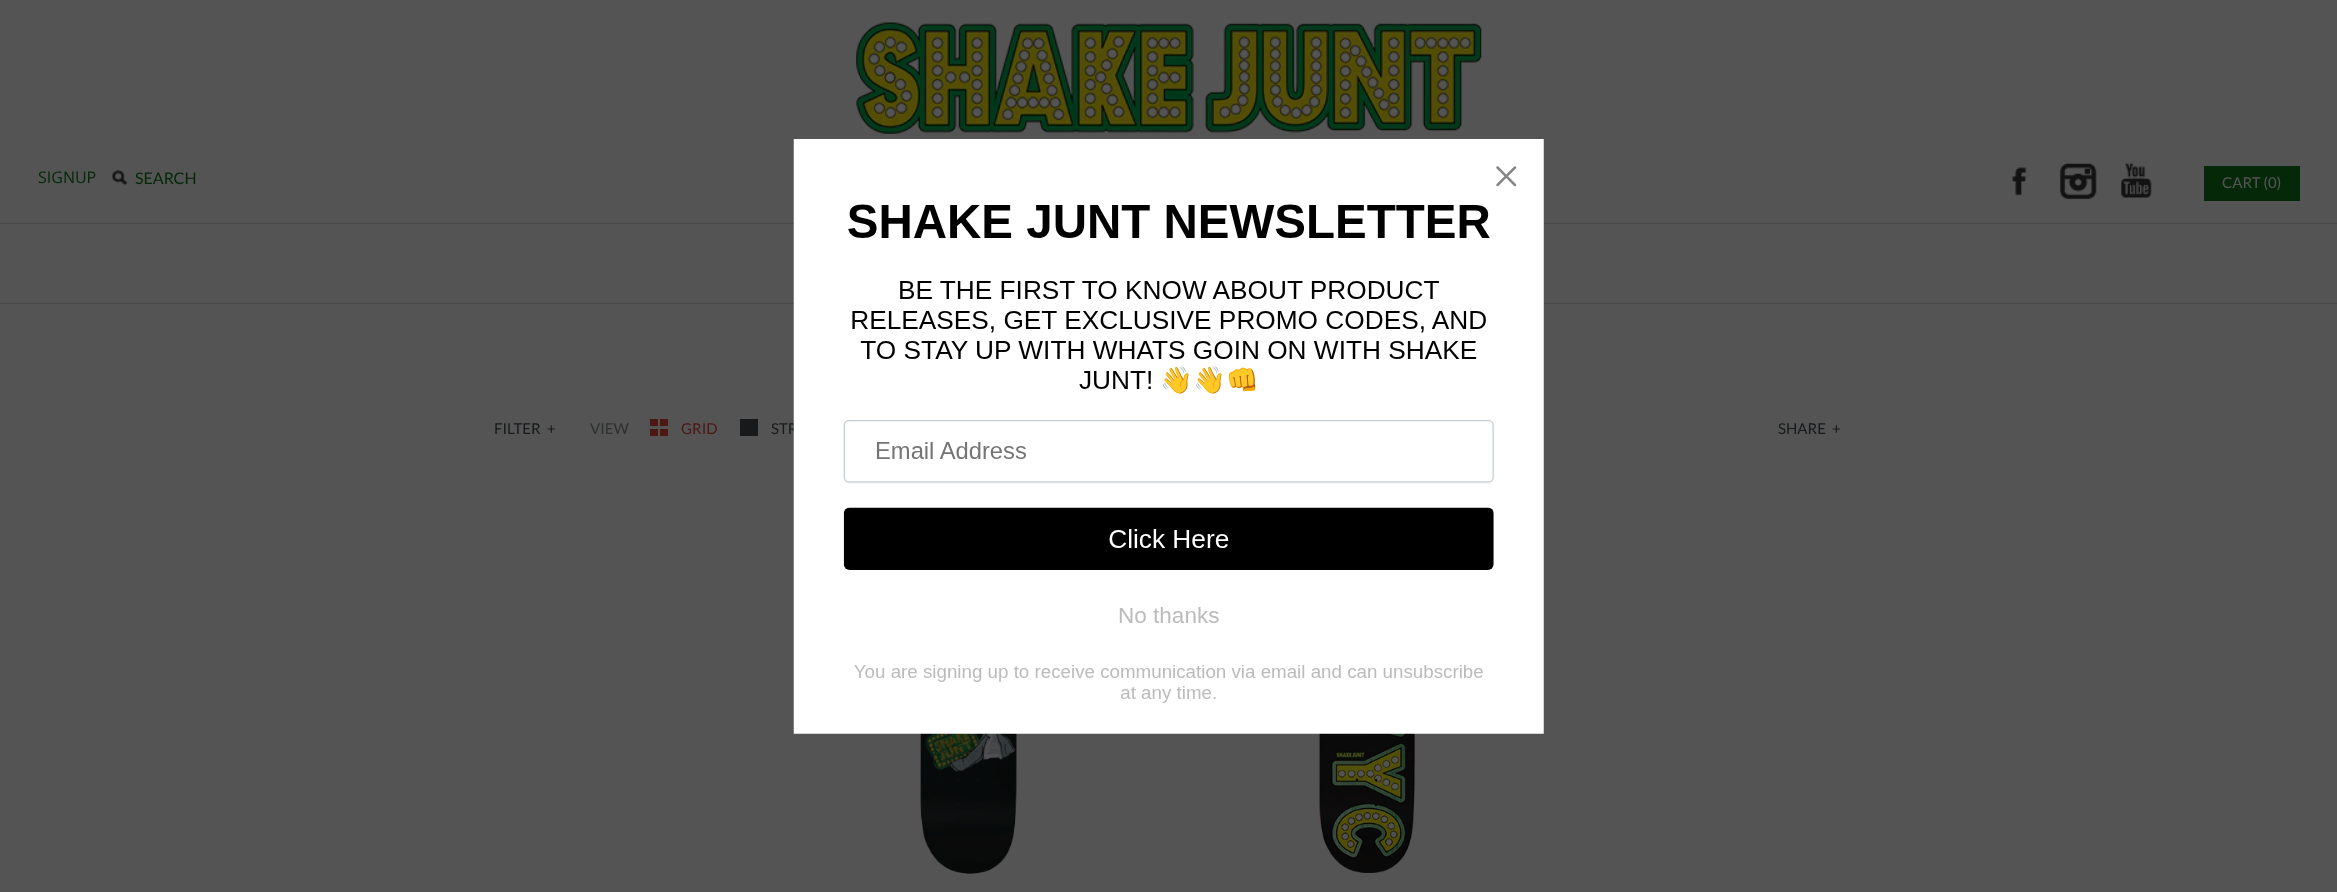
<!DOCTYPE html>
<meta charset="utf-8">
<style>body { margin: 0 } canvas { display: block }</style>
<canvas id="canvas" width="2337" height="892"></canvas>
<img id="img1" src="img_02.png" hidden>
<img id="img2" src="img_03.png" hidden>
<img id="img3" src="img_04.png" hidden>
<img id="img4" src="img_05.png" hidden>
<img id="img5" src="img_06.png" hidden>
<img id="img6" src="img_07.png" hidden>
<img id="img7" src="img_08.png" hidden>
<img id="img8" src="img_01.png" hidden>
<script>
window.onload = function () {
	const canvas = document.getElementById("canvas");
	const ctx = canvas.getContext("2d");
	ctx.miterLimit = 4;
	ctx.fontKerning = "normal";
	function txt(s, x, y) {
		ctx.fillText(s, x, y);
	}
	function fill(x, y, w, h) {
		ctx.fillRect(x, y, w, h);
	}
	function img(id, x, y, w, h) {
		ctx.drawImage(document.getElementById(id), x, y, w, h);
	}

	ctx.fillStyle = "#FFFFFF";
	fill(0, 0, 2337, 892);
	img("img1", 856, 22, 626, 112);
	img("img2", 112, 169, 16, 17);
	img("img3", 2012, 167, 15, 29);
	img("img4", 2059, 163, 38, 36);
	img("img5", 2121, 163, 31, 35);
	ctx.fillStyle = "#117A1A";
	fill(2204, 166, 96, 35);
	ctx.fillStyle = "#D9D9D4";
	fill(0, 303, 2337, 1);
	fill(0, 223, 2337, 1);
	ctx.fillStyle = "#E94B3F";
	fill(650, 419, 8, 7);
	fill(660, 419, 8, 7);
	fill(650, 429, 8, 7);
	fill(660, 429, 8, 7);
	ctx.fillStyle = "#464E54";
	fill(740, 419, 18, 17);
	img("img6", 919, 733, 100, 141);
	img("img7", 1318, 733, 98, 140);
	ctx.font = "16px Open Sans";
	ctx.fillStyle = "#117A1A";
	txt("SIGNUP", 38, 183);
	ctx.font = "16px Lato";
	txt("SEARCH", 135, 184);
	ctx.font = "15px Lato";
	ctx.fillStyle = "#FFFFFF";
	txt("CART (0)", 2222, 188);
	ctx.fillStyle = "#464E54";
	txt("FILTER", 494, 434);
	txt("+", 547, 434);
	ctx.fillStyle = "#8A8F93";
	txt("VIEW", 590, 434);
	ctx.fillStyle = "#E94B3F";
	txt("GRID", 681, 434);
	ctx.fillStyle = "#464E54";
	txt("STR", 771, 434);
	txt("SHARE", 1778, 434);
	txt("+", 1832, 434);
	img("img8", 0, 0, 2337, 892);
};
</script>
